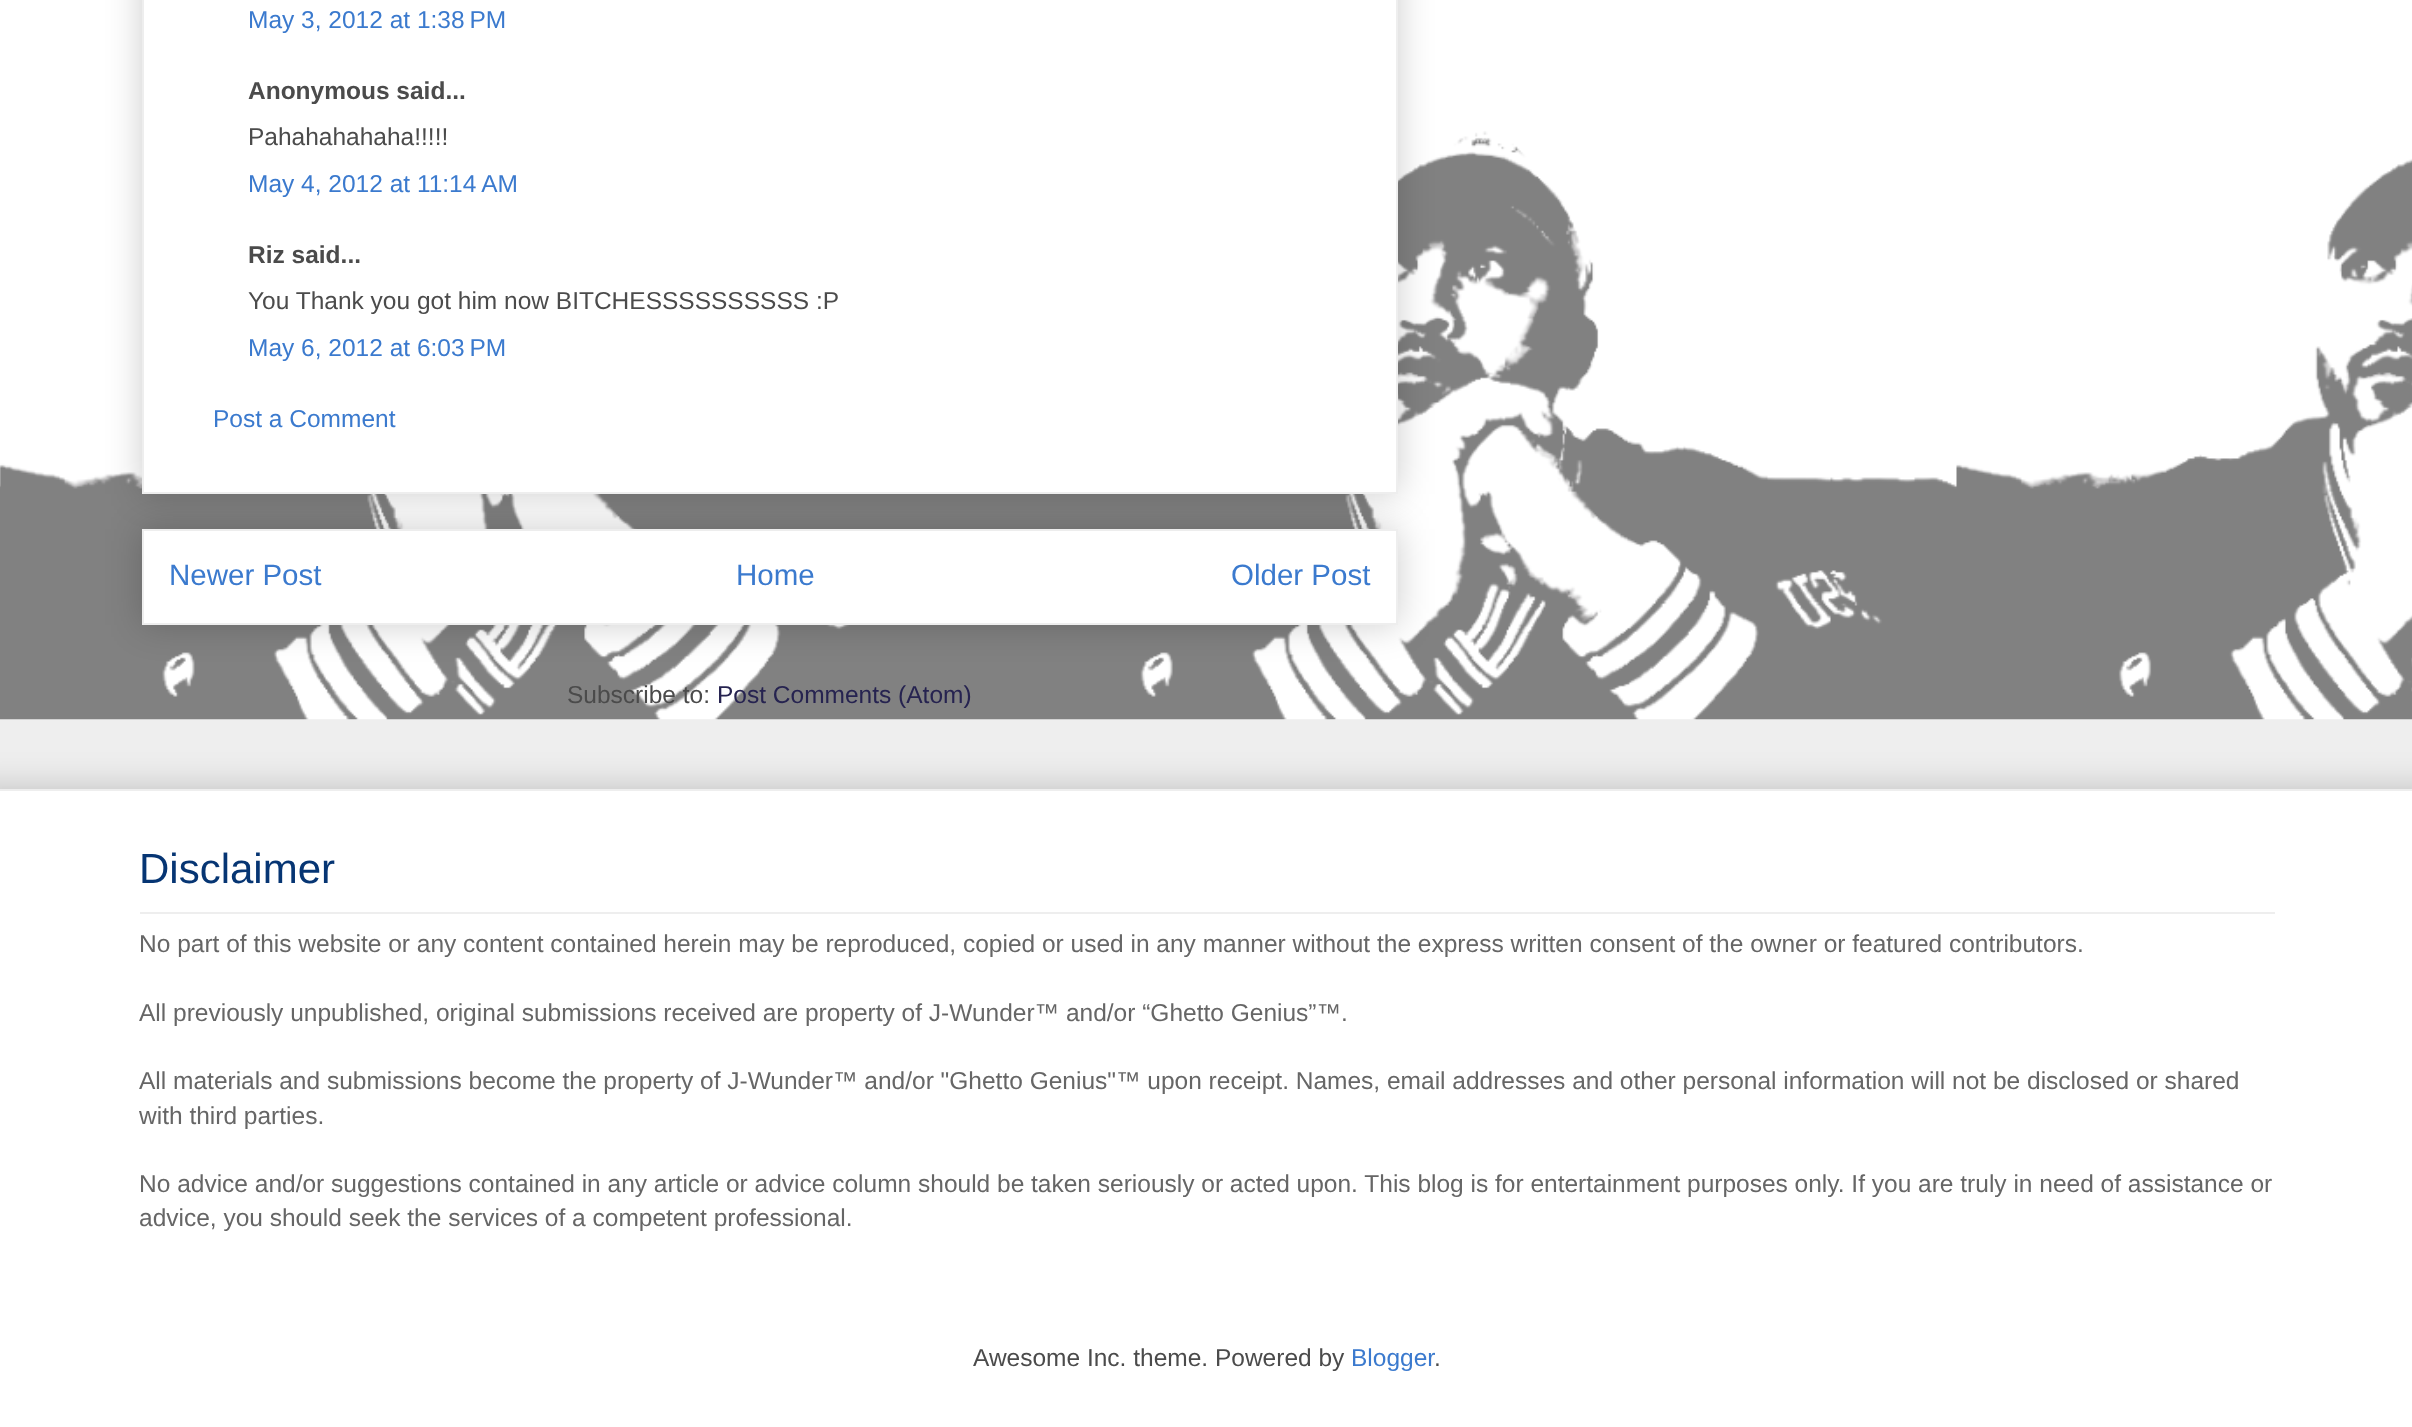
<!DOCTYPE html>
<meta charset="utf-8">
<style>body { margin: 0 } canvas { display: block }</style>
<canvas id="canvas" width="2412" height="1427"></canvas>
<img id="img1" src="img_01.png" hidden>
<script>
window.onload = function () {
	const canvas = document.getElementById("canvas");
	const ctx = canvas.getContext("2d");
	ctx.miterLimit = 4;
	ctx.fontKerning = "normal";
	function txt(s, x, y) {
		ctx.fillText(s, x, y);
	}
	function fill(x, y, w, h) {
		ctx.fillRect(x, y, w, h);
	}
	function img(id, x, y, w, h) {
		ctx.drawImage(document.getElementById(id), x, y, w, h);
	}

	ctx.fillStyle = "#EEEEEE";
	fill(0, 0, 2412, 1427);
	img("img1", 0, 0, 2412, 720);
	ctx.fillStyle = "rgba(0, 0, 0, 0.2)";
	ctx.filter = "blur(17.5px)";
	ctx.beginPath();
	ctx.rect(142, 529, 1256, 96);
	ctx.fill();
	ctx.filter = "none";
	ctx.fillStyle = "#FFFFFF";
	ctx.beginPath();
	ctx.rect(143, 530, 1254, 94);
	ctx.fill();
	ctx.strokeStyle = "#EEEEEE";
	ctx.lineWidth = 2;
	ctx.stroke();
	ctx.fillStyle = "rgba(0, 0, 0, 0.2)";
	ctx.filter = "blur(17.5px)";
	ctx.beginPath();
	ctx.rect(142, -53, 1256, 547);
	ctx.fill();
	ctx.filter = "none";
	ctx.fillStyle = "#FFFFFF";
	ctx.beginPath();
	ctx.rect(143, -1, 1254, 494);
	ctx.fill();
	ctx.stroke();
	ctx.fillStyle = "rgba(0, 0, 0, 0.2)";
	ctx.filter = "blur(17.5px)";
	ctx.beginPath();
	ctx.rect(-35, 789, 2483, 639);
	ctx.fill();
	ctx.filter = "none";
	ctx.fillStyle = "#FFFFFF";
	fill(0, 791, 2412, 636);
	ctx.fillStyle = "#EEEEEE";
	fill(0, 789, 2412, 2);
	fill(140, 912, 2135, 2);
	ctx.font = "24.5px Liberation Sans";
	ctx.fillStyle = "#3B7ACE";
	txt("May 3, 2012 at 1:38 PM", 248, 28);
	ctx.font = "bold 24.5px Liberation Sans";
	ctx.fillStyle = "#4B4B4B";
	txt("Anonymous said...", 248, 99);
	ctx.font = "24.5px Liberation Sans";
	txt("Pahahahahaha!!!!!", 248, 145);
	ctx.fillStyle = "#3B7ACE";
	txt("May 4, 2012 at 11:14 AM", 248, 192);
	ctx.font = "bold 24.5px Liberation Sans";
	ctx.fillStyle = "#4B4B4B";
	txt("Riz said...", 248, 263);
	ctx.font = "24.5px Liberation Sans";
	txt("You Thank you got him now BITCHESSSSSSSSSS :P", 248, 309);
	ctx.fillStyle = "#3B7ACE";
	txt("May 6, 2012 at 6:03 PM", 248, 356);
	txt("Post a Comment", 213, 427);
	ctx.font = "29.5px Liberation Sans";
	txt("Newer Post", 169, 585);
	txt("Home", 736, 585);
	txt("Older Post", 1231, 585);
	ctx.font = "24.5px Liberation Sans";
	ctx.fillStyle = "#4B4B4B";
	txt("Subscribe to:", 567, 703);
	ctx.fillStyle = "#262350";
	txt("Post Comments (Atom)", 717, 703);
	ctx.font = "42px Liberation Sans";
	ctx.fillStyle = "#063573";
	txt("Disclaimer", 139, 883);
	ctx.font = "24.5px Liberation Sans";
	ctx.fillStyle = "#666666";
	txt("No part of this website or any content contained herein may be reproduced, copied or used in any manner without the express written consent of the owner or featured contributors.", 139, 952);
	txt("All previously unpublished, original submissions received are property of J-Wunder™ and/or “Ghetto Genius”™.", 139, 1021);
	txt("All materials and submissions become the property of J-Wunder™ and/or \"Ghetto Genius\"™ upon receipt. Names, email addresses and other personal information will not be disclosed or shared", 139, 1089);
	txt("with third parties.", 139, 1124);
	txt("No advice and/or suggestions contained in any article or advice column should be taken seriously or acted upon. This blog is for entertainment purposes only. If you are truly in need of assistance or", 139, 1192);
	txt("advice, you should seek the services of a competent professional.", 139, 1226);
	ctx.fillStyle = "#4B4B4B";
	txt("Awesome Inc. theme. Powered by", 973, 1366);
	ctx.fillStyle = "#3B7ACE";
	txt("Blogger", 1351, 1366);
	ctx.fillStyle = "#4B4B4B";
	txt(".", 1434, 1366);
};
</script>
